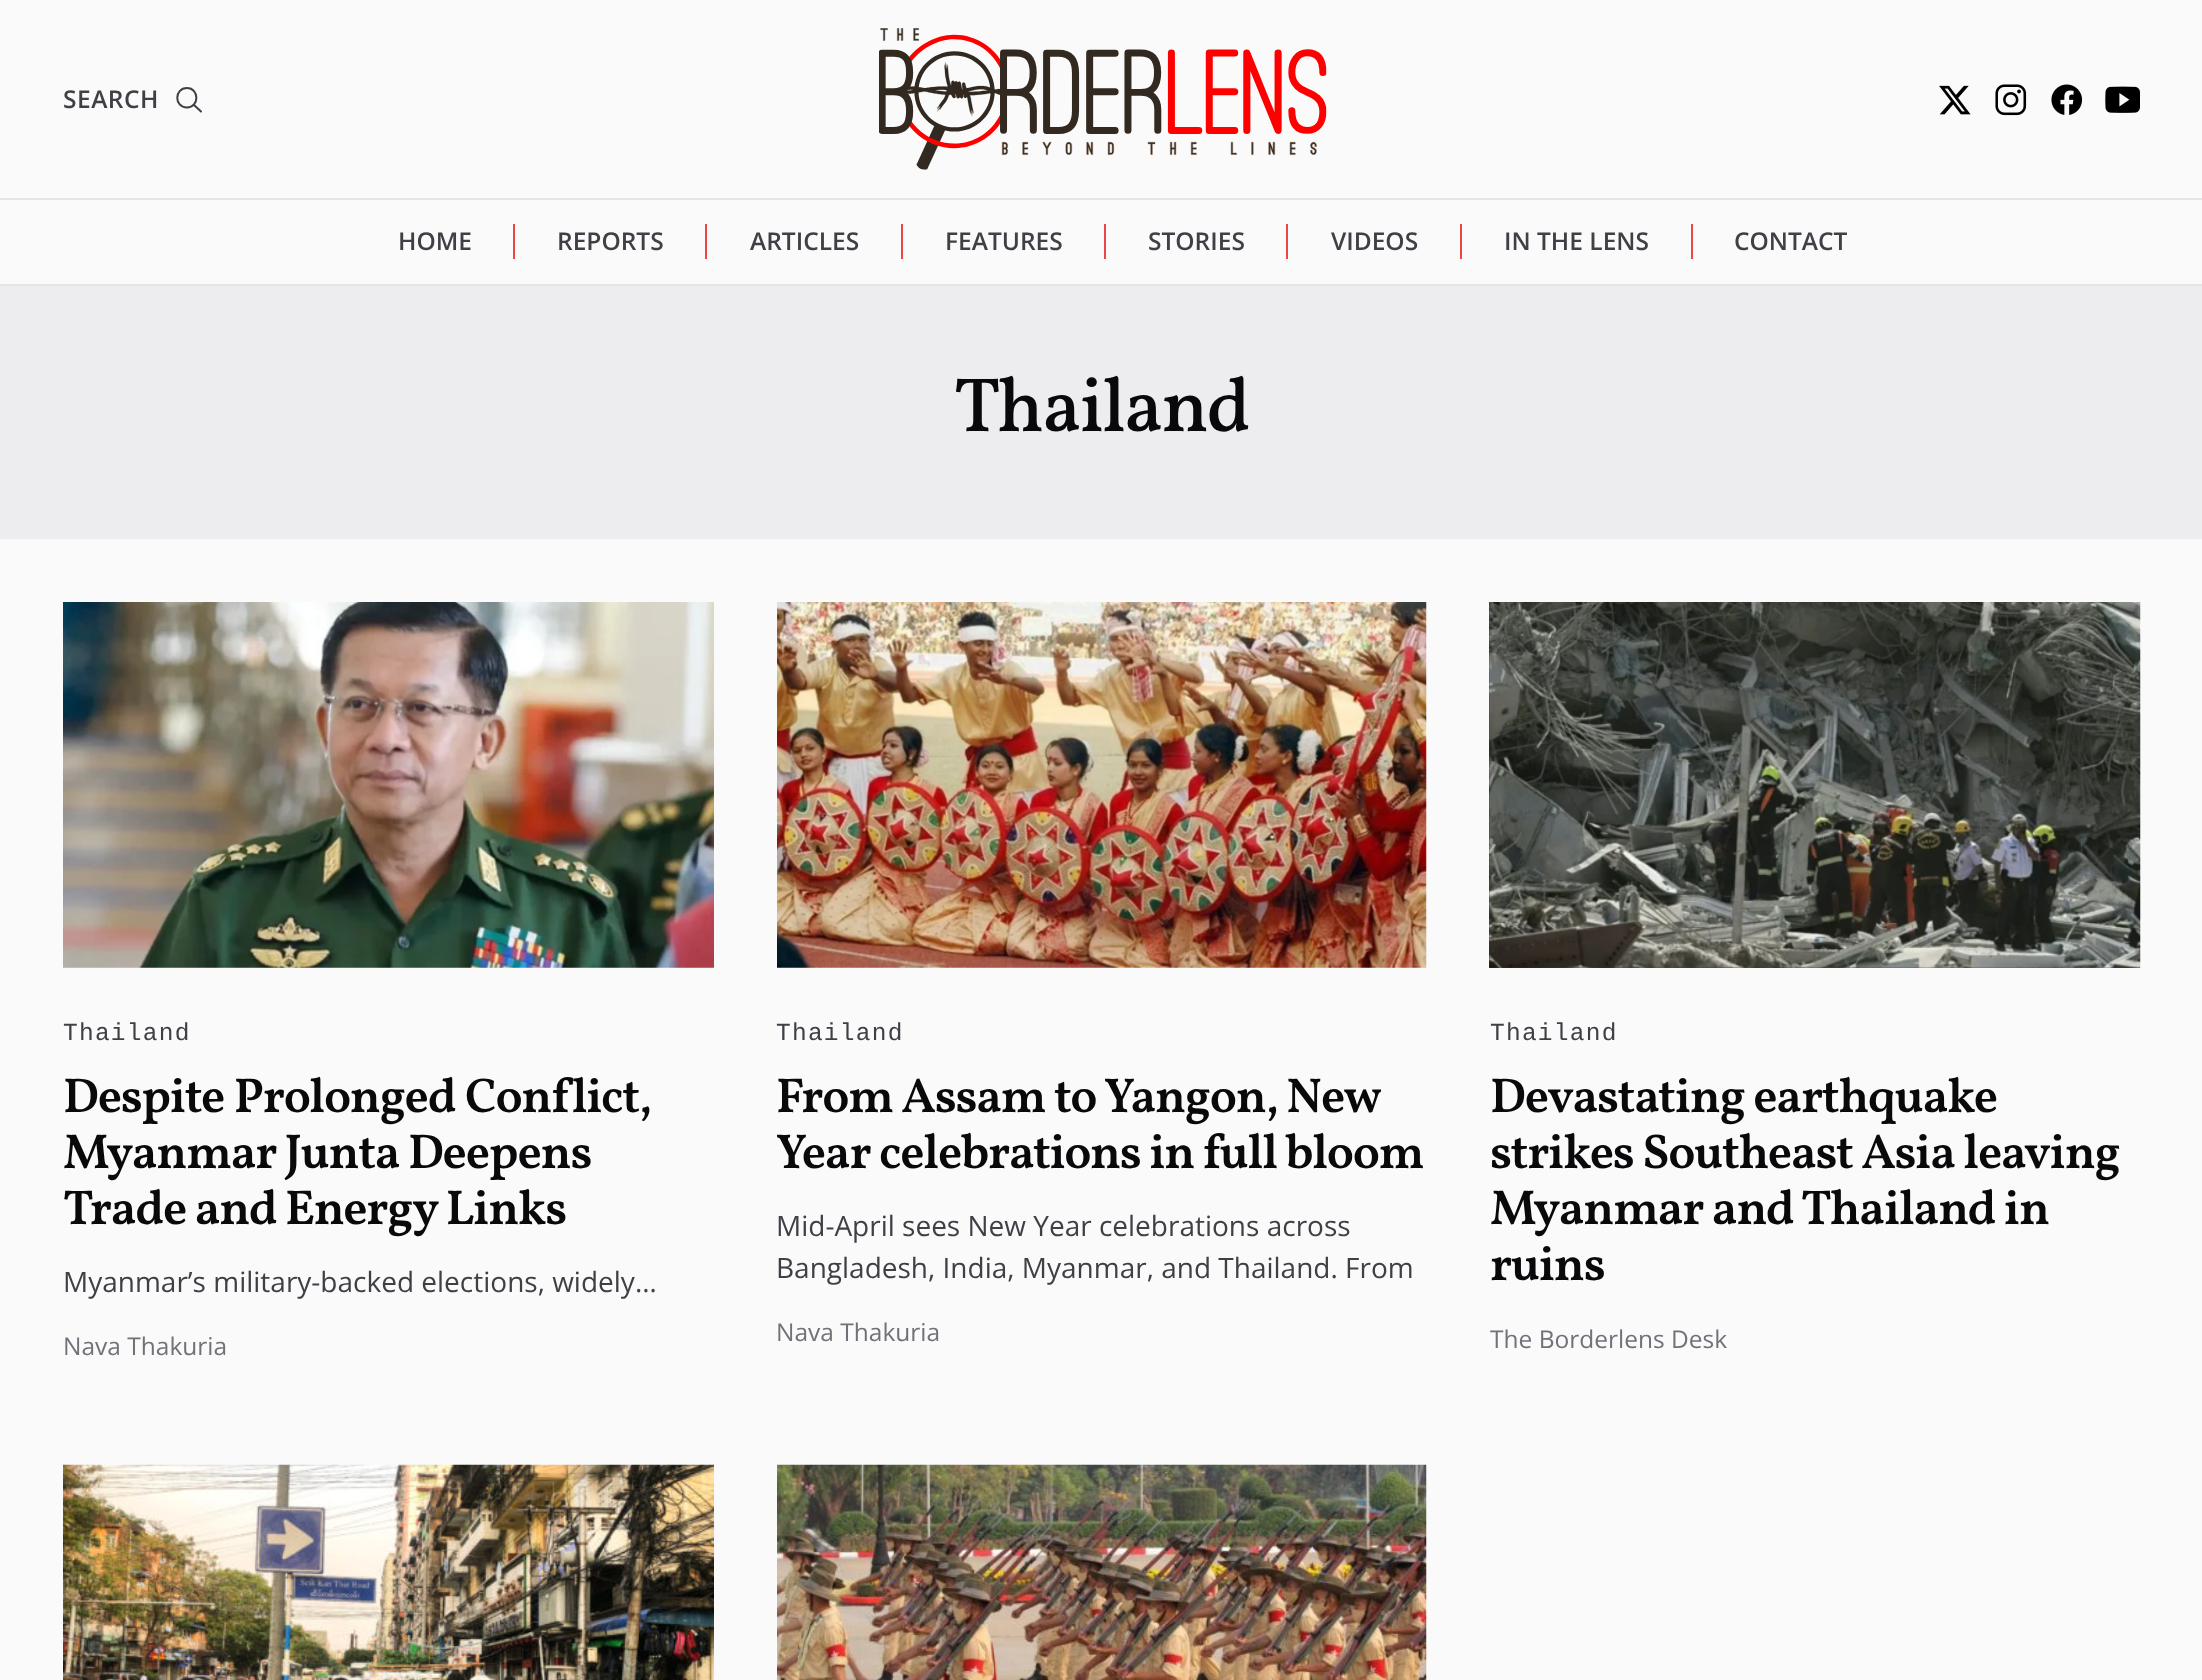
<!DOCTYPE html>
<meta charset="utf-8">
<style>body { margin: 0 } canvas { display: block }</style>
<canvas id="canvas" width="2202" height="1680"></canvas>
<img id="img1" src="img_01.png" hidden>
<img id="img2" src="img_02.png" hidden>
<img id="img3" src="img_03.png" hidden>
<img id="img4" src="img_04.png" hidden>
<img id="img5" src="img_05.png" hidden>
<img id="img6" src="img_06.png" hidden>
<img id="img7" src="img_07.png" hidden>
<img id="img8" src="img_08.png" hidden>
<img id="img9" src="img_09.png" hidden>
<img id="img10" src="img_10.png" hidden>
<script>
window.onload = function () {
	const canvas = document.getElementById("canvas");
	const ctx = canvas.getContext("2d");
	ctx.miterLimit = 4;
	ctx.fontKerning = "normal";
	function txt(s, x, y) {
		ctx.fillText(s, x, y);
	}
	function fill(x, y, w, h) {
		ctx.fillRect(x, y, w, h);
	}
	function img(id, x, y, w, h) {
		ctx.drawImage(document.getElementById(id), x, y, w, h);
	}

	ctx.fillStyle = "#FAFAFA";
	fill(0, 0, 2202, 1680);
	ctx.fillStyle = "#EDEDEF";
	fill(0, 286, 2202, 253);
	ctx.beginPath();
	ctx.moveTo(187, 88);
	ctx.bezierCurveTo(174, 88, 174, 107.5, 187, 107.5);
	ctx.bezierCurveTo(199.5, 107.5, 199.5, 88, 187, 88);
	ctx.closePath();
	ctx.strokeStyle = "#3F3F46";
	ctx.lineWidth = 2;
	ctx.stroke();
	ctx.beginPath();
	ctx.moveTo(194, 105);
	ctx.lineTo(201, 111.5);
	ctx.lineCap = "round";
	ctx.stroke();
	img("img1", 879, 28, 448, 142);
	img("img2", 1939, 85, 32, 30);
	img("img3", 1995, 84, 32, 32);
	img("img4", 2051, 84, 32, 31);
	img("img5", 2105, 86, 35, 27);
	ctx.fillStyle = "#E4E4E7";
	fill(0, 198, 2202, 2);
	fill(0, 284, 2202, 2);
	ctx.fillStyle = "#EF4444";
	fill(513, 224, 2, 35);
	fill(705, 224, 2, 35);
	fill(901, 224, 2, 35);
	fill(1104, 224, 2, 35);
	fill(1286, 224, 2, 35);
	fill(1460, 224, 2, 35);
	fill(1691, 224, 2, 35);
	img("img6", 63, 602, 651, 366);
	img("img7", 777, 602, 650, 366);
	ctx.fillStyle = "#3F3F46";
	fill(1489, 602, 651, 366);
	img("img8", 1489, 602, 652, 366);
	img("img9", 63, 1464, 651, 216);
	img("img10", 777, 1464, 650, 216);
	ctx.letterSpacing = "0.5px";
	ctx.font = "600 24.5px Open Sans";
	txt("SEARCH", 63, 108);
	ctx.letterSpacing = "0px";
	txt("HOME", 398, 250);
	txt("REPORTS", 557, 250);
	txt("ARTICLES", 750, 250);
	txt("FEATURES", 945, 250);
	txt("STORIES", 1148, 250);
	txt("VIDEOS", 1331, 250);
	txt("IN THE LENS", 1504, 250);
	txt("CONTACT", 1734, 250);
	ctx.letterSpacing = "-2px";
	ctx.font = "500 77px Vollkorn";
	ctx.fillStyle = "#09090B";
	txt("Thailand", 954, 431);
	ctx.letterSpacing = "1.25px";
	ctx.font = "24.5px Liberation Mono";
	ctx.fillStyle = "#3F3F46";
	txt("Thailand", 63, 1040);
	ctx.letterSpacing = "-1.25px";
	ctx.wordSpacing = "1px";
	ctx.font = "600 49px Vollkorn";
	ctx.fillStyle = "#09090B";
	txt("Despite Prolonged Conflict,", 63, 1112);
	ctx.wordSpacing = "0px";
	txt("Myanmar Junta Deepens", 63, 1168);
	txt("Trade and Energy Links", 63, 1224);
	ctx.letterSpacing = "0px";
	ctx.font = "28px Open Sans";
	ctx.fillStyle = "#3F3F46";
	txt("Myanmar’s military-backed elections, widely…", 63, 1292);
	ctx.font = "24.5px Open Sans";
	ctx.fillStyle = "#71717A";
	txt("Nava Thakuria", 63, 1355);
	ctx.letterSpacing = "1.25px";
	ctx.font = "24.5px Liberation Mono";
	ctx.fillStyle = "#3F3F46";
	txt("Thailand", 776, 1040);
	ctx.letterSpacing = "-1.25px";
	ctx.font = "600 49px Vollkorn";
	ctx.fillStyle = "#09090B";
	txt("From Assam to Yangon, New", 776, 1112);
	txt("Year celebrations in full bloom", 776, 1168);
	ctx.letterSpacing = "0px";
	ctx.font = "28px Open Sans";
	ctx.fillStyle = "#3F3F46";
	txt("Mid-April sees New Year celebrations across", 776, 1236);
	txt("Bangladesh, India, Myanmar, and Thailand. From", 776, 1278);
	ctx.font = "24.5px Open Sans";
	ctx.fillStyle = "#71717A";
	txt("Nava Thakuria", 776, 1341);
	ctx.letterSpacing = "1.25px";
	ctx.font = "24.5px Liberation Mono";
	ctx.fillStyle = "#3F3F46";
	txt("Thailand", 1490, 1040);
	ctx.letterSpacing = "-1.25px";
	ctx.font = "600 49px Vollkorn";
	ctx.fillStyle = "#09090B";
	txt("Devastating earthquake", 1490, 1112);
	txt("strikes Southeast Asia leaving", 1490, 1168);
	txt("Myanmar and Thailand in", 1490, 1224);
	txt("ruins", 1490, 1280);
	ctx.letterSpacing = "0px";
	ctx.font = "24.5px Open Sans";
	ctx.fillStyle = "#71717A";
	txt("The Borderlens Desk", 1490, 1348);
};
</script>
